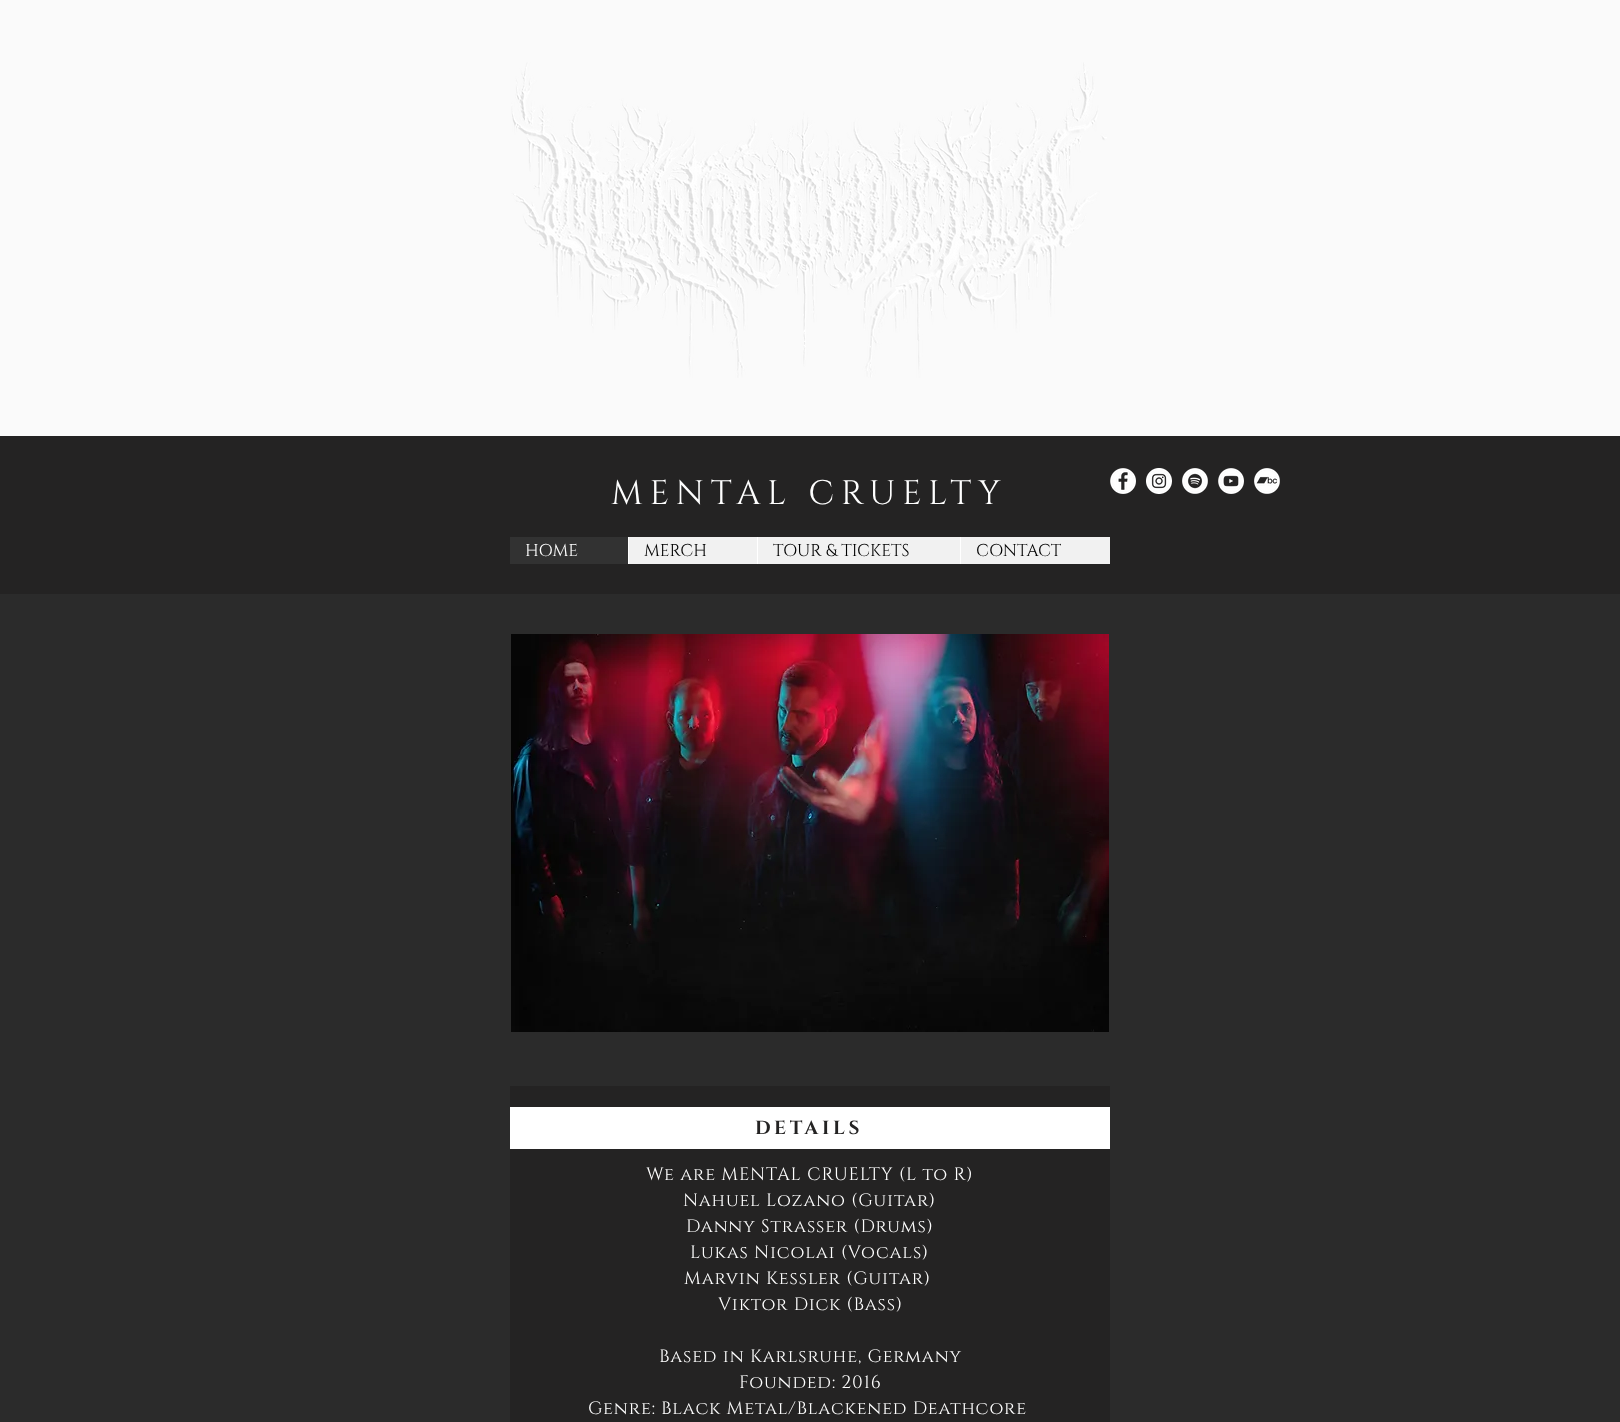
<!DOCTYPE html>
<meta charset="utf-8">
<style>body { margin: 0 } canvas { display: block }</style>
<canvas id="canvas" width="1620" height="1422"></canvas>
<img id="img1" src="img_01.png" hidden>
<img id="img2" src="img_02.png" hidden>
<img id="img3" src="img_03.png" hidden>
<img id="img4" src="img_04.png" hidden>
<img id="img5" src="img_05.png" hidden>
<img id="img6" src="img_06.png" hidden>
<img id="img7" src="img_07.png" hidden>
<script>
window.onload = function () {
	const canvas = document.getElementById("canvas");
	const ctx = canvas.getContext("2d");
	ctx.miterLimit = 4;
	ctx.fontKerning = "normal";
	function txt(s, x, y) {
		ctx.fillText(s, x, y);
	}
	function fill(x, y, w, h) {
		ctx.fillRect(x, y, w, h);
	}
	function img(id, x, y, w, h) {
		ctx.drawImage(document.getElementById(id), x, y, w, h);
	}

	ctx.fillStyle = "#2B2B2B";
	fill(0, 0, 1620, 1422);
	ctx.fillStyle = "#FAFAFA";
	fill(0, 0, 1620, 436);
	img("img1", 511, 62, 596, 316);
	ctx.fillStyle = "#242323";
	fill(0, 436, 1620, 158);
	img("img2", 1110, 468, 26, 26);
	img("img3", 1146, 468, 26, 26);
	img("img4", 1182, 468, 26, 26);
	img("img5", 1218, 468, 26, 26);
	img("img6", 1254, 468, 26, 26);
	ctx.fillStyle = "#F1F1F1";
	fill(629, 537, 481, 27);
	ctx.fillStyle = "#323232";
	fill(510, 537, 118, 27);
	ctx.fillStyle = "#FFFFFF";
	fill(628, 537, 1, 27);
	fill(757, 537, 1, 27);
	fill(960, 537, 1, 27);
	img("img7", 511, 634, 598, 398);
	ctx.fillStyle = "#242323";
	fill(510, 1086, 600, 336);
	ctx.fillStyle = "#FFFFFF";
	fill(510, 1107, 600, 42);
	ctx.letterSpacing = "6.75px";
	ctx.font = "34px Cinzel";
	txt("MENTAL CRUELTY", 611, 504);
	ctx.letterSpacing = "0px";
	ctx.font = "17px Cinzel";
	txt("HOME", 525, 556);
	ctx.fillStyle = "#000000";
	txt("MERCH", 644, 556);
	txt("TOUR & TICKETS", 773, 556);
	txt("CONTACT", 976, 556);
	ctx.letterSpacing = "3.75px";
	ctx.font = "bold 19px Cinzel";
	ctx.fillStyle = "#242323";
	txt("DETAILS", 755, 1134);
	ctx.letterSpacing = "0.9px";
	ctx.font = "18px Cinzel";
	ctx.fillStyle = "#FFFFFF";
	txt("We are MENTAL CRUELTY (L to R)", 646, 1180);
	txt("Nahuel Lozano (Guitar)", 683, 1206);
	txt("Danny Strasser (Drums)", 686, 1232);
	txt("Lukas Nicolai (Vocals)", 690, 1258);
	txt("Marvin Kessler (Guitar)", 684, 1284);
	txt("Viktor Dick (Bass)", 718, 1310);
	txt("Based in Karlsruhe, Germany", 659, 1362);
	txt("Founded: 2016", 739, 1388);
	txt("Genre: Black Metal/Blackened Deathcore", 588, 1414);
};
</script>
